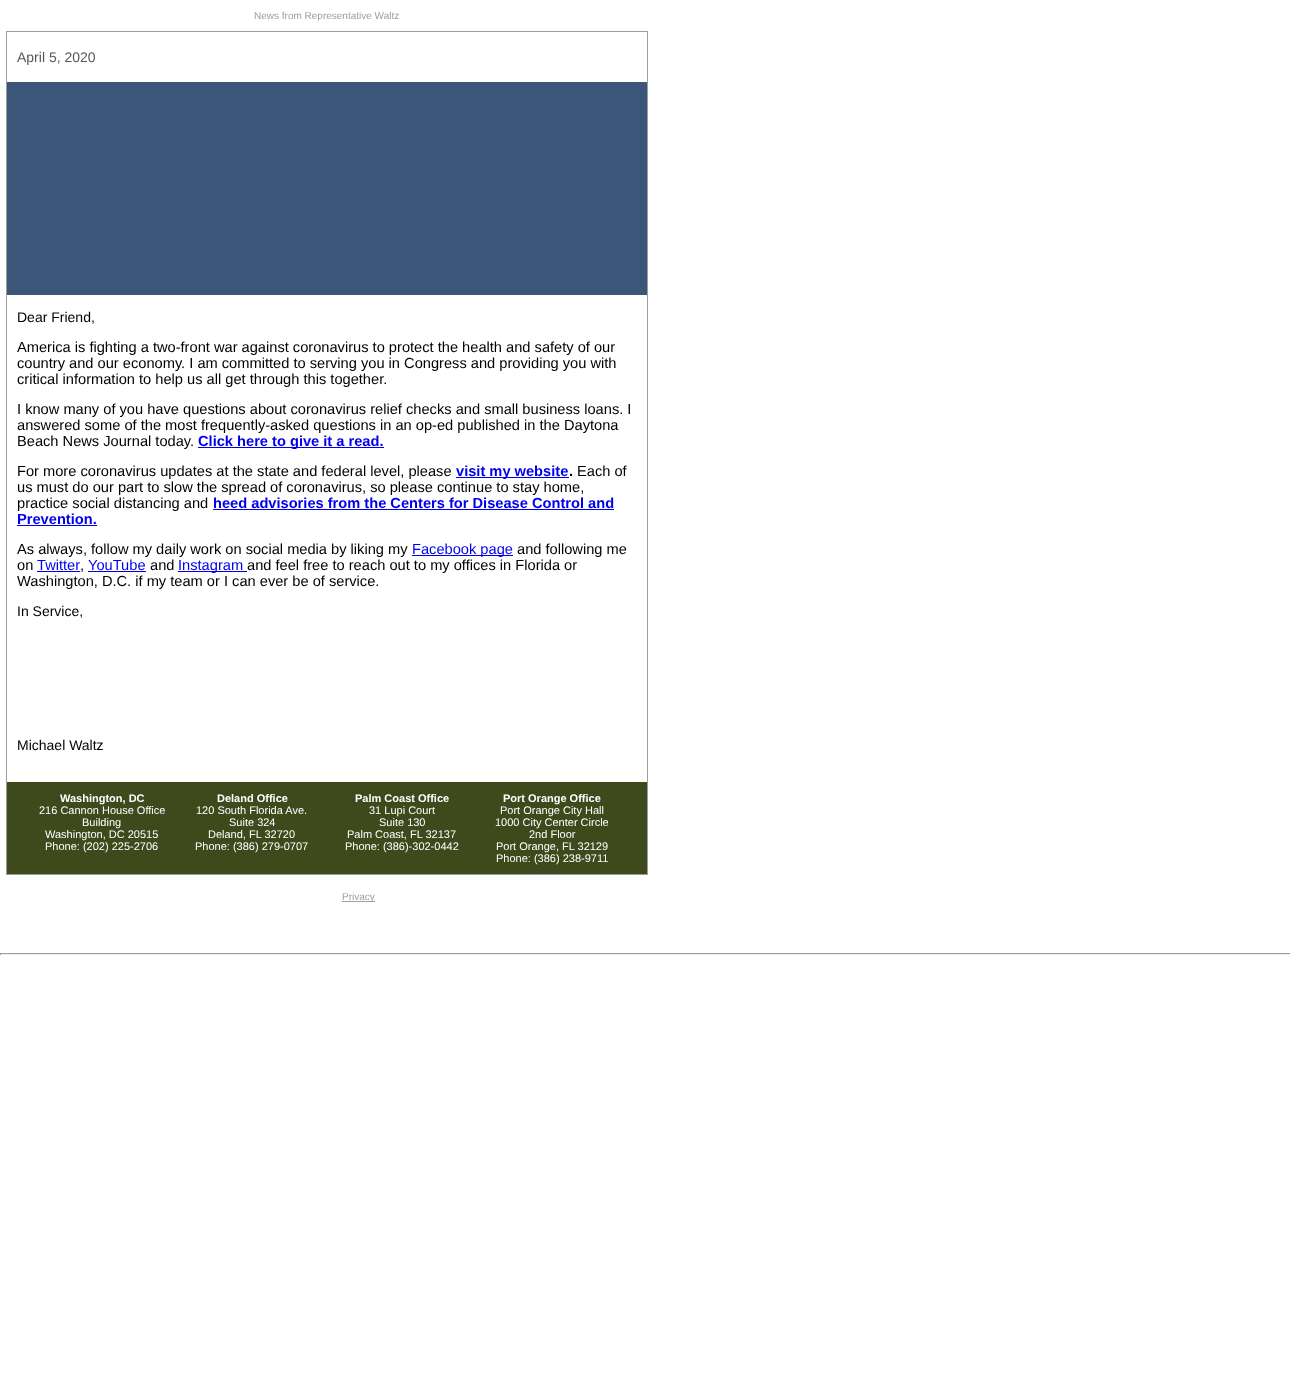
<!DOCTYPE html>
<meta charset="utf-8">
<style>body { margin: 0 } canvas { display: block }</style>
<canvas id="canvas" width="1291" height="1375"></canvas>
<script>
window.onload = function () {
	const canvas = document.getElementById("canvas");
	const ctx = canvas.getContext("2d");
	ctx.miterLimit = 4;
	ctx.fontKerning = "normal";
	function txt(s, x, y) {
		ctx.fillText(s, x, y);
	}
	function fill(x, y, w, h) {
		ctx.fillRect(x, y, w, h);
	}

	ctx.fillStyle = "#FFFFFF";
	fill(0, 0, 1291, 1375);
	ctx.strokeStyle = "#9D9D9D";
	ctx.strokeRect(6.5, 31.5, 641, 843);
	ctx.fillStyle = "#3B5678";
	fill(7, 82, 640, 213);
	ctx.fillStyle = "#0000EE";
	fill(198, 447, 186, 1);
	fill(456, 477, 113, 1);
	fill(213, 509, 401, 1);
	fill(17, 525, 80, 1);
	fill(412, 555, 101, 1);
	fill(37, 571, 43, 1);
	fill(88, 571, 58, 1);
	fill(178, 571, 69, 1);
	ctx.fillStyle = "#3E4A1C";
	fill(7, 782, 640, 92);
	ctx.fillStyle = "#9D9D9D";
	fill(342, 901, 33, 1);
	ctx.fillStyle = "#9F9F9F";
	fill(0, 953, 1291, 1);
	ctx.fillStyle = "#EEEEEE";
	fill(1290, 953, 1, 2);
	fill(0, 954, 1291, 1);
	ctx.fillStyle = "#9F9F9F";
	fill(0, 953, 1, 2);
	ctx.font = "10px Liberation Sans";
	ctx.fillStyle = "#9D9D9D";
	txt("News from Representative Waltz", 254, 19);
	ctx.font = "14px Liberation Sans";
	ctx.fillStyle = "#585858";
	txt("April 5, 2020", 17, 62);
	ctx.fillStyle = "#000000";
	txt("Dear Friend,", 17, 322);
	ctx.font = "14.65px Liberation Sans";
	txt("America is fighting a two-front war against coronavirus to protect the health and safety of our", 17, 352);
	txt("country and our economy. I am committed to serving you in Congress and providing you with", 17, 368);
	txt("critical information to help us all get through this together.", 17, 384);
	txt("I know many of you have questions about coronavirus relief checks and small business loans. I", 17, 414);
	txt("answered some of the most frequently-asked questions in an op-ed published in the Daytona", 17, 430);
	txt("Beach News Journal today.", 17, 446);
	ctx.font = "bold 14.65px Liberation Sans";
	ctx.fillStyle = "#0000EE";
	txt("Click here to give it a read.", 198, 446);
	ctx.font = "14.65px Liberation Sans";
	ctx.fillStyle = "#000000";
	txt("For more coronavirus updates at the state and federal level, please", 17, 476);
	ctx.font = "bold 14.65px Liberation Sans";
	ctx.fillStyle = "#0000EE";
	txt("visit my website", 456, 476);
	ctx.fillStyle = "#000000";
	txt(".", 569, 476);
	ctx.font = "14.65px Liberation Sans";
	txt("Each of", 577, 476);
	txt("us must do our part to slow the spread of coronavirus, so please continue to stay home,", 17, 492);
	txt("practice social distancing and", 17, 508);
	ctx.font = "bold 14.65px Liberation Sans";
	ctx.fillStyle = "#0000EE";
	txt("heed advisories from the Centers for Disease Control and", 213, 508);
	txt("Prevention.", 17, 524);
	ctx.font = "14.65px Liberation Sans";
	ctx.fillStyle = "#000000";
	txt("As always, follow my daily work on social media by liking my", 17, 554);
	ctx.fillStyle = "#0000EE";
	txt("Facebook page", 412, 554);
	ctx.fillStyle = "#000000";
	txt("and following me", 517, 554);
	txt("on", 17, 570);
	ctx.fillStyle = "#0000EE";
	txt("Twitter", 37, 570);
	ctx.fillStyle = "#000000";
	txt(",", 80, 570);
	ctx.fillStyle = "#0000EE";
	txt("YouTube", 88, 570);
	ctx.fillStyle = "#000000";
	txt("and", 150, 570);
	ctx.fillStyle = "#0000EE";
	txt("Instagram", 178, 570);
	ctx.fillStyle = "#000000";
	txt("and feel free to reach out to my offices in Florida or", 247, 570);
	txt("Washington, D.C. if my team or I can ever be of service.", 17, 586);
	ctx.font = "14px Liberation Sans";
	txt("In Service,", 17, 616);
	txt("Michael Waltz", 17, 750);
	ctx.font = "bold 11px Liberation Sans";
	ctx.fillStyle = "#FFFFFF";
	txt("Washington, DC", 60, 802);
	ctx.font = "11px Liberation Sans";
	txt("216 Cannon House Office", 39, 814);
	txt("Building", 82, 826);
	txt("Washington, DC 20515", 45, 838);
	txt("Phone: (202) 225-2706", 45, 850);
	ctx.font = "bold 11px Liberation Sans";
	txt("Deland Office", 217, 802);
	ctx.font = "11px Liberation Sans";
	txt("120 South Florida Ave.", 196, 814);
	txt("Suite 324", 229, 826);
	txt("Deland, FL 32720", 208, 838);
	txt("Phone: (386) 279-0707", 195, 850);
	ctx.font = "bold 11px Liberation Sans";
	txt("Palm Coast Office", 355, 802);
	ctx.font = "11px Liberation Sans";
	txt("31 Lupi Court", 369, 814);
	txt("Suite 130", 379, 826);
	txt("Palm Coast, FL 32137", 347, 838);
	txt("Phone: (386)-302-0442", 345, 850);
	ctx.font = "bold 11px Liberation Sans";
	txt("Port Orange Office", 503, 802);
	ctx.font = "11px Liberation Sans";
	txt("Port Orange City Hall", 500, 814);
	txt("1000 City Center Circle", 495, 826);
	txt("2nd Floor", 529, 838);
	txt("Port Orange, FL 32129", 496, 850);
	txt("Phone: (386) 238-9711", 496, 862);
	ctx.font = "10px Liberation Sans";
	ctx.fillStyle = "#9D9D9D";
	txt("Privacy", 342, 900);
};
</script>
